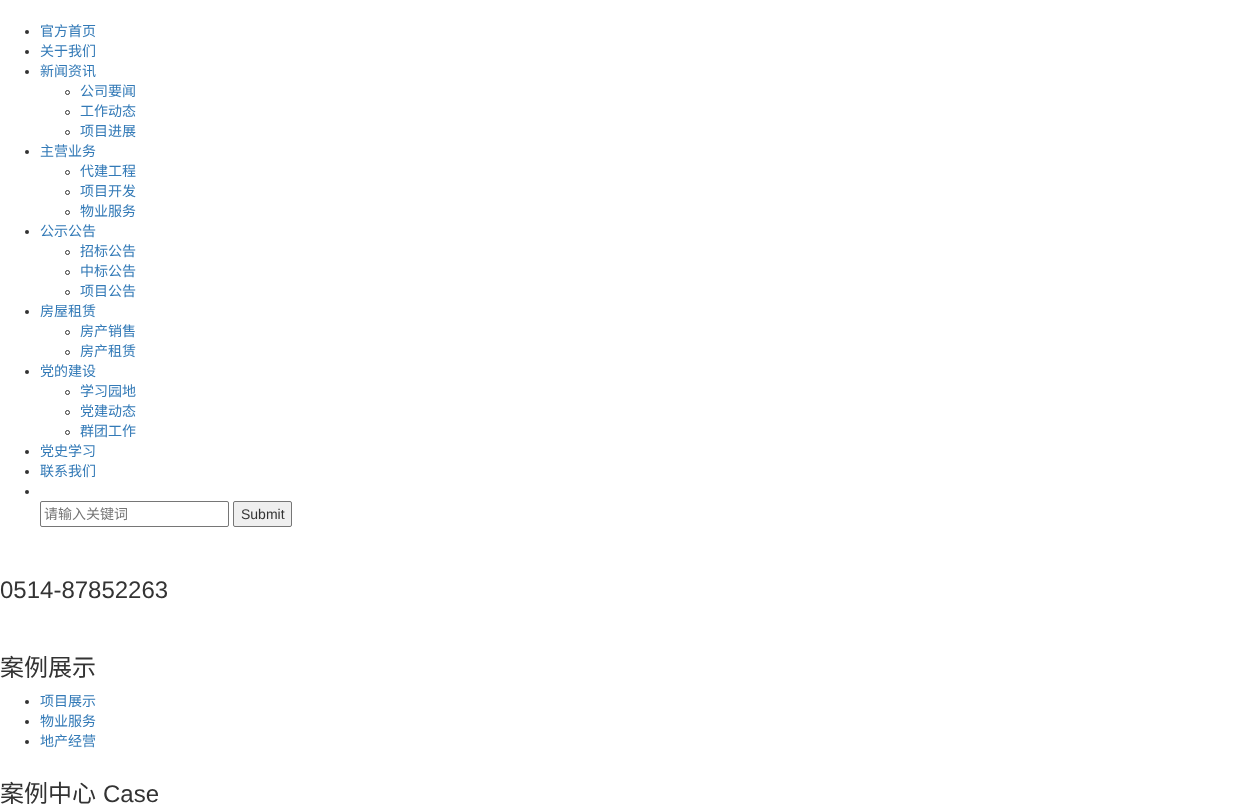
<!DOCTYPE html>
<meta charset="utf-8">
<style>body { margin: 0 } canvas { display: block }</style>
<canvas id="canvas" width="1257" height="806"></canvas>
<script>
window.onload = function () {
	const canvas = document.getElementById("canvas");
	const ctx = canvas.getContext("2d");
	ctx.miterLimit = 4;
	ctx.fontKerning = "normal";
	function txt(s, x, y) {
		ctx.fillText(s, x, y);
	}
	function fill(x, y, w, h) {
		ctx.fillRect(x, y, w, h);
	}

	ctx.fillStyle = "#FFFFFF";
	fill(0, 0, 1257, 806);
	ctx.fillStyle = "#333333";
	ctx.beginPath();
	ctx.arc(27, 32, 2, 0, Math.PI * 2);
	ctx.fill();
	ctx.beginPath();
	ctx.arc(27, 52, 2, 0, Math.PI * 2);
	ctx.fill();
	ctx.beginPath();
	ctx.arc(27, 72, 2, 0, Math.PI * 2);
	ctx.fill();
	ctx.beginPath();
	ctx.arc(67.5, 92.5, 2, 0, Math.PI * 2);
	ctx.strokeStyle = "#333333";
	ctx.stroke();
	ctx.beginPath();
	ctx.arc(67.5, 112.5, 2, 0, Math.PI * 2);
	ctx.stroke();
	ctx.beginPath();
	ctx.arc(67.5, 132.5, 2, 0, Math.PI * 2);
	ctx.stroke();
	ctx.beginPath();
	ctx.arc(27, 152, 2, 0, Math.PI * 2);
	ctx.fill();
	ctx.beginPath();
	ctx.arc(67.5, 172.5, 2, 0, Math.PI * 2);
	ctx.stroke();
	ctx.beginPath();
	ctx.arc(67.5, 192.5, 2, 0, Math.PI * 2);
	ctx.stroke();
	ctx.beginPath();
	ctx.arc(67.5, 212.5, 2, 0, Math.PI * 2);
	ctx.stroke();
	ctx.beginPath();
	ctx.arc(27, 232, 2, 0, Math.PI * 2);
	ctx.fill();
	ctx.beginPath();
	ctx.arc(67.5, 252.5, 2, 0, Math.PI * 2);
	ctx.stroke();
	ctx.beginPath();
	ctx.arc(67.5, 272.5, 2, 0, Math.PI * 2);
	ctx.stroke();
	ctx.beginPath();
	ctx.arc(67.5, 292.5, 2, 0, Math.PI * 2);
	ctx.stroke();
	ctx.beginPath();
	ctx.arc(27, 312, 2, 0, Math.PI * 2);
	ctx.fill();
	ctx.beginPath();
	ctx.arc(67.5, 332.5, 2, 0, Math.PI * 2);
	ctx.stroke();
	ctx.beginPath();
	ctx.arc(67.5, 352.5, 2, 0, Math.PI * 2);
	ctx.stroke();
	ctx.beginPath();
	ctx.arc(27, 372, 2, 0, Math.PI * 2);
	ctx.fill();
	ctx.beginPath();
	ctx.arc(67.5, 392.5, 2, 0, Math.PI * 2);
	ctx.stroke();
	ctx.beginPath();
	ctx.arc(67.5, 412.5, 2, 0, Math.PI * 2);
	ctx.stroke();
	ctx.beginPath();
	ctx.arc(67.5, 432.5, 2, 0, Math.PI * 2);
	ctx.stroke();
	ctx.beginPath();
	ctx.arc(27, 452, 2, 0, Math.PI * 2);
	ctx.fill();
	ctx.beginPath();
	ctx.arc(27, 472, 2, 0, Math.PI * 2);
	ctx.fill();
	ctx.beginPath();
	ctx.arc(27, 492, 2, 0, Math.PI * 2);
	ctx.fill();
	ctx.beginPath();
	ctx.roundRect(40.5, 501.5, 188, 25, 1.5);
	ctx.strokeStyle = "#767676";
	ctx.stroke();
	ctx.fillStyle = "#EFEFEF";
	ctx.beginPath();
	ctx.roundRect(233.5, 501.5, 58, 25, 1.5);
	ctx.fill();
	ctx.stroke();
	ctx.fillStyle = "#333333";
	ctx.beginPath();
	ctx.arc(27, 702, 2, 0, Math.PI * 2);
	ctx.fill();
	ctx.beginPath();
	ctx.arc(27, 722, 2, 0, Math.PI * 2);
	ctx.fill();
	ctx.beginPath();
	ctx.arc(27, 742, 2, 0, Math.PI * 2);
	ctx.fill();
	ctx.font = "14px Noto Sans CJK SC";
	ctx.fillStyle = "#337AB7";
	txt("官方首页", 40, 36);
	txt("关于我们", 40, 56);
	txt("新闻资讯", 40, 76);
	txt("公司要闻", 80, 96);
	txt("工作动态", 80, 116);
	txt("项目进展", 80, 136);
	txt("主营业务", 40, 156);
	txt("代建工程", 80, 176);
	txt("项目开发", 80, 196);
	txt("物业服务", 80, 216);
	txt("公示公告", 40, 236);
	txt("招标公告", 80, 256);
	txt("中标公告", 80, 276);
	txt("项目公告", 80, 296);
	txt("房屋租赁", 40, 316);
	txt("房产销售", 80, 336);
	txt("房产租赁", 80, 356);
	txt("党的建设", 40, 376);
	txt("学习园地", 80, 396);
	txt("党建动态", 80, 416);
	txt("群团工作", 80, 436);
	txt("党史学习", 40, 456);
	txt("联系我们", 40, 476);
	ctx.fillStyle = "#757575";
	txt("请输入关键词", 44, 519);
	ctx.font = "14px Liberation Sans";
	ctx.fillStyle = "#333333";
	txt("Submit", 241, 519);
	ctx.font = "24px Liberation Sans";
	txt("0514-87852263", 0, 598);
	ctx.font = "24px Noto Sans CJK SC";
	txt("案例展示", 0, 676);
	ctx.font = "14px Noto Sans CJK SC";
	ctx.fillStyle = "#337AB7";
	txt("项目展示", 40, 706);
	txt("物业服务", 40, 726);
	txt("地产经营", 40, 746);
	ctx.font = "24px Noto Sans CJK SC";
	ctx.fillStyle = "#333333";
	txt("案例中心", 0, 802);
	ctx.font = "24px Liberation Sans";
	txt("Case", 103, 802);
};
</script>
